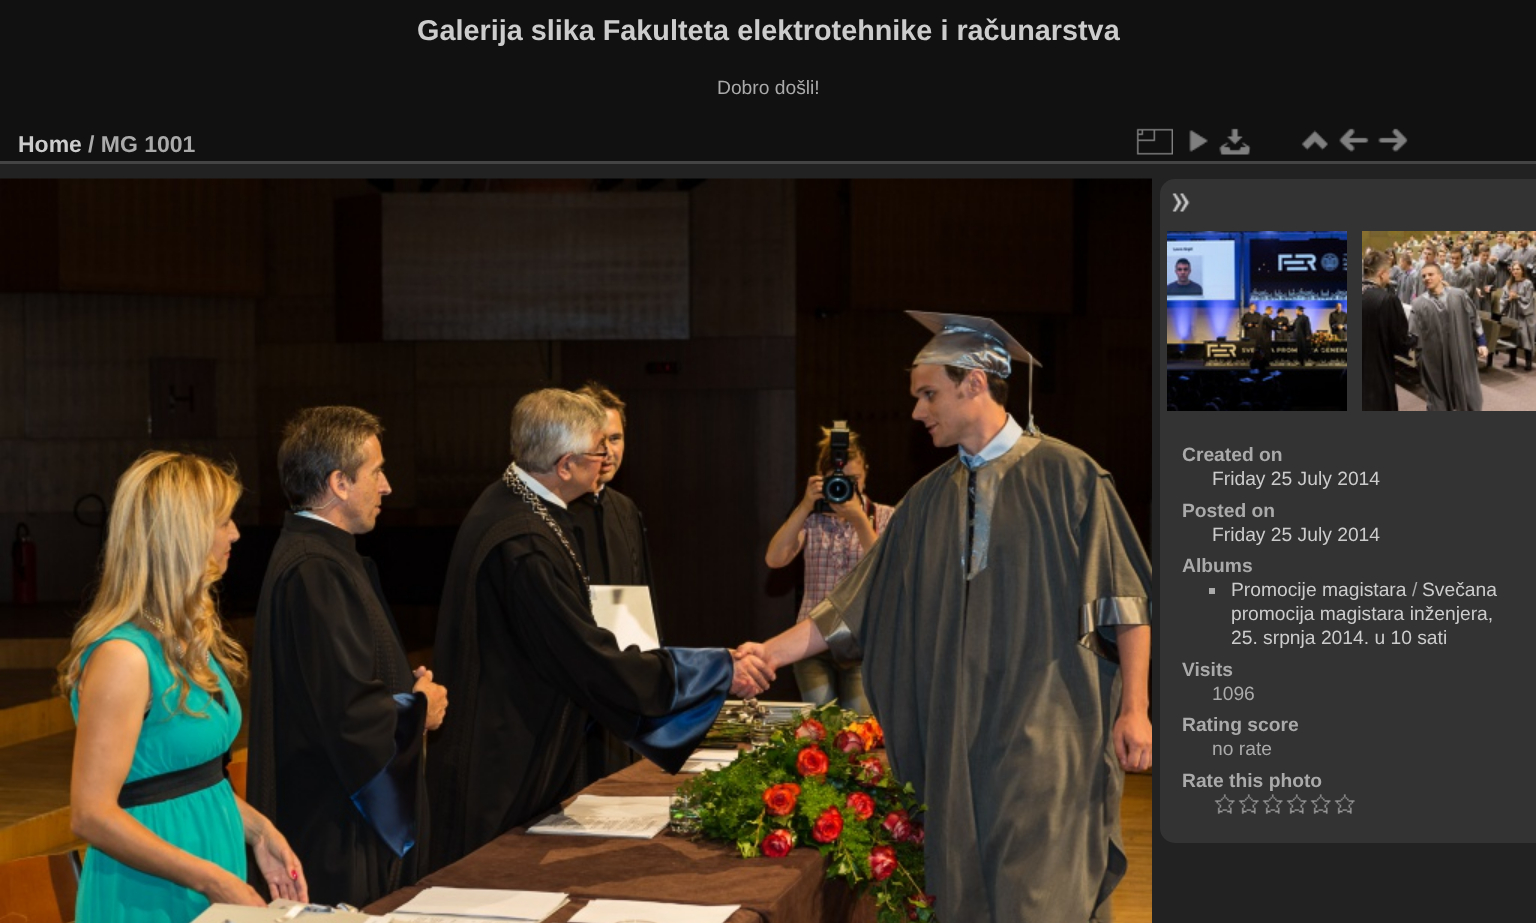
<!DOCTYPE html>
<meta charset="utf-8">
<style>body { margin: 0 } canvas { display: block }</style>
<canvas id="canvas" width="1536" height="923"></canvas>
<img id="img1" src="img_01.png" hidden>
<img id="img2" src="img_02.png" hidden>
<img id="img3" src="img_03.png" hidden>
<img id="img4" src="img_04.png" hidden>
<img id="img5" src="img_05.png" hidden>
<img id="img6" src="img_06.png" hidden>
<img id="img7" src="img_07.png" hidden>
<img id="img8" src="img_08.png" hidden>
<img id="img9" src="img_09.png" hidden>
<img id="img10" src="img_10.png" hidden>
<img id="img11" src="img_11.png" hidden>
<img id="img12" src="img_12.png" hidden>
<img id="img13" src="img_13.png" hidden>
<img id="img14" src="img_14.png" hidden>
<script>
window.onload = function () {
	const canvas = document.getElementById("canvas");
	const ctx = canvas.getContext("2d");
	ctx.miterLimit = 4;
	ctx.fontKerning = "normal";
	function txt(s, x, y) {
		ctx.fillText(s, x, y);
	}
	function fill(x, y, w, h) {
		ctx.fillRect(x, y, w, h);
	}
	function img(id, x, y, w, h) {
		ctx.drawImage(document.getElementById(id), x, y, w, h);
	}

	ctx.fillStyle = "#111111";
	fill(0, 0, 1536, 923);
	ctx.fillStyle = "#222222";
	fill(0, 164, 1536, 759);
	ctx.fillStyle = "#444444";
	fill(0, 161, 1536, 3);
	img("img1", 1136, 128, 37, 27);
	img("img2", 1189, 130, 19, 22);
	img("img3", 1219, 128, 32, 27);
	img("img4", 1301, 130, 27, 21);
	img("img5", 1339, 128, 30, 24);
	img("img6", 1378, 128, 30, 24);
	img("img7", 0, 178, 1152, 745);
	ctx.fillStyle = "#333333";
	ctx.beginPath();
	ctx.roundRect(1160, 179, 376, 664, [15, 0, 0, 15]);
	ctx.fill();
	img("img8", 1172, 193, 18, 19);
	img("img9", 1167, 231, 180, 180);
	img("img10", 1362, 231, 174, 180);
	ctx.fillStyle = "#AAAAAA";
	fill(1209, 588, 6, 6);
	img("img11", 1214, 794, 21, 20);
	img("img11", 1238, 794, 21, 20);
	img("img12", 1262, 794, 21, 20);
	img("img13", 1286, 794, 21, 20);
	img("img14", 1310, 794, 21, 20);
	img("img11", 1334, 794, 21, 20);
	ctx.font = "bold 28.8px Liberation Sans";
	ctx.fillStyle = "#CCCCCC";
	txt("Galerija slika Fakulteta elektrotehnike i računarstva", 417, 40);
	ctx.font = "19.25px Liberation Sans";
	ctx.fillStyle = "#AAAAAA";
	txt("Dobro došli!", 717, 94);
	ctx.font = "bold 23px Liberation Sans";
	ctx.fillStyle = "#CCCCCC";
	txt("Home", 18, 152);
	ctx.fillStyle = "#AAAAAA";
	txt("/ MG 1001", 88, 152);
	ctx.font = "bold 19.25px Liberation Sans";
	txt("Created on", 1182, 461);
	ctx.font = "19.25px Liberation Sans";
	ctx.fillStyle = "#CCCCCC";
	txt("Friday 25 July 2014", 1212, 485);
	ctx.font = "bold 19.25px Liberation Sans";
	ctx.fillStyle = "#AAAAAA";
	txt("Posted on", 1182, 517);
	ctx.font = "19.25px Liberation Sans";
	ctx.fillStyle = "#CCCCCC";
	txt("Friday 25 July 2014", 1212, 541);
	ctx.font = "bold 19.25px Liberation Sans";
	ctx.fillStyle = "#AAAAAA";
	txt("Albums", 1182, 572);
	ctx.font = "19.25px Liberation Sans";
	ctx.fillStyle = "#CCCCCC";
	txt("Promocije magistara", 1231, 596);
	ctx.fillStyle = "#AAAAAA";
	txt("/", 1412, 596);
	ctx.fillStyle = "#CCCCCC";
	txt("Svečana", 1422, 596);
	txt("promocija magistara inženjera,", 1231, 620);
	txt("25. srpnja 2014. u 10 sati", 1231, 644);
	ctx.font = "bold 19.25px Liberation Sans";
	ctx.fillStyle = "#AAAAAA";
	txt("Visits", 1182, 676);
	ctx.font = "19.25px Liberation Sans";
	txt("1096", 1212, 700);
	ctx.font = "bold 19.25px Liberation Sans";
	txt("Rating score", 1182, 731);
	ctx.font = "19.25px Liberation Sans";
	txt("no rate", 1212, 755);
	ctx.font = "bold 19.25px Liberation Sans";
	txt("Rate this photo", 1182, 787);
};
</script>
